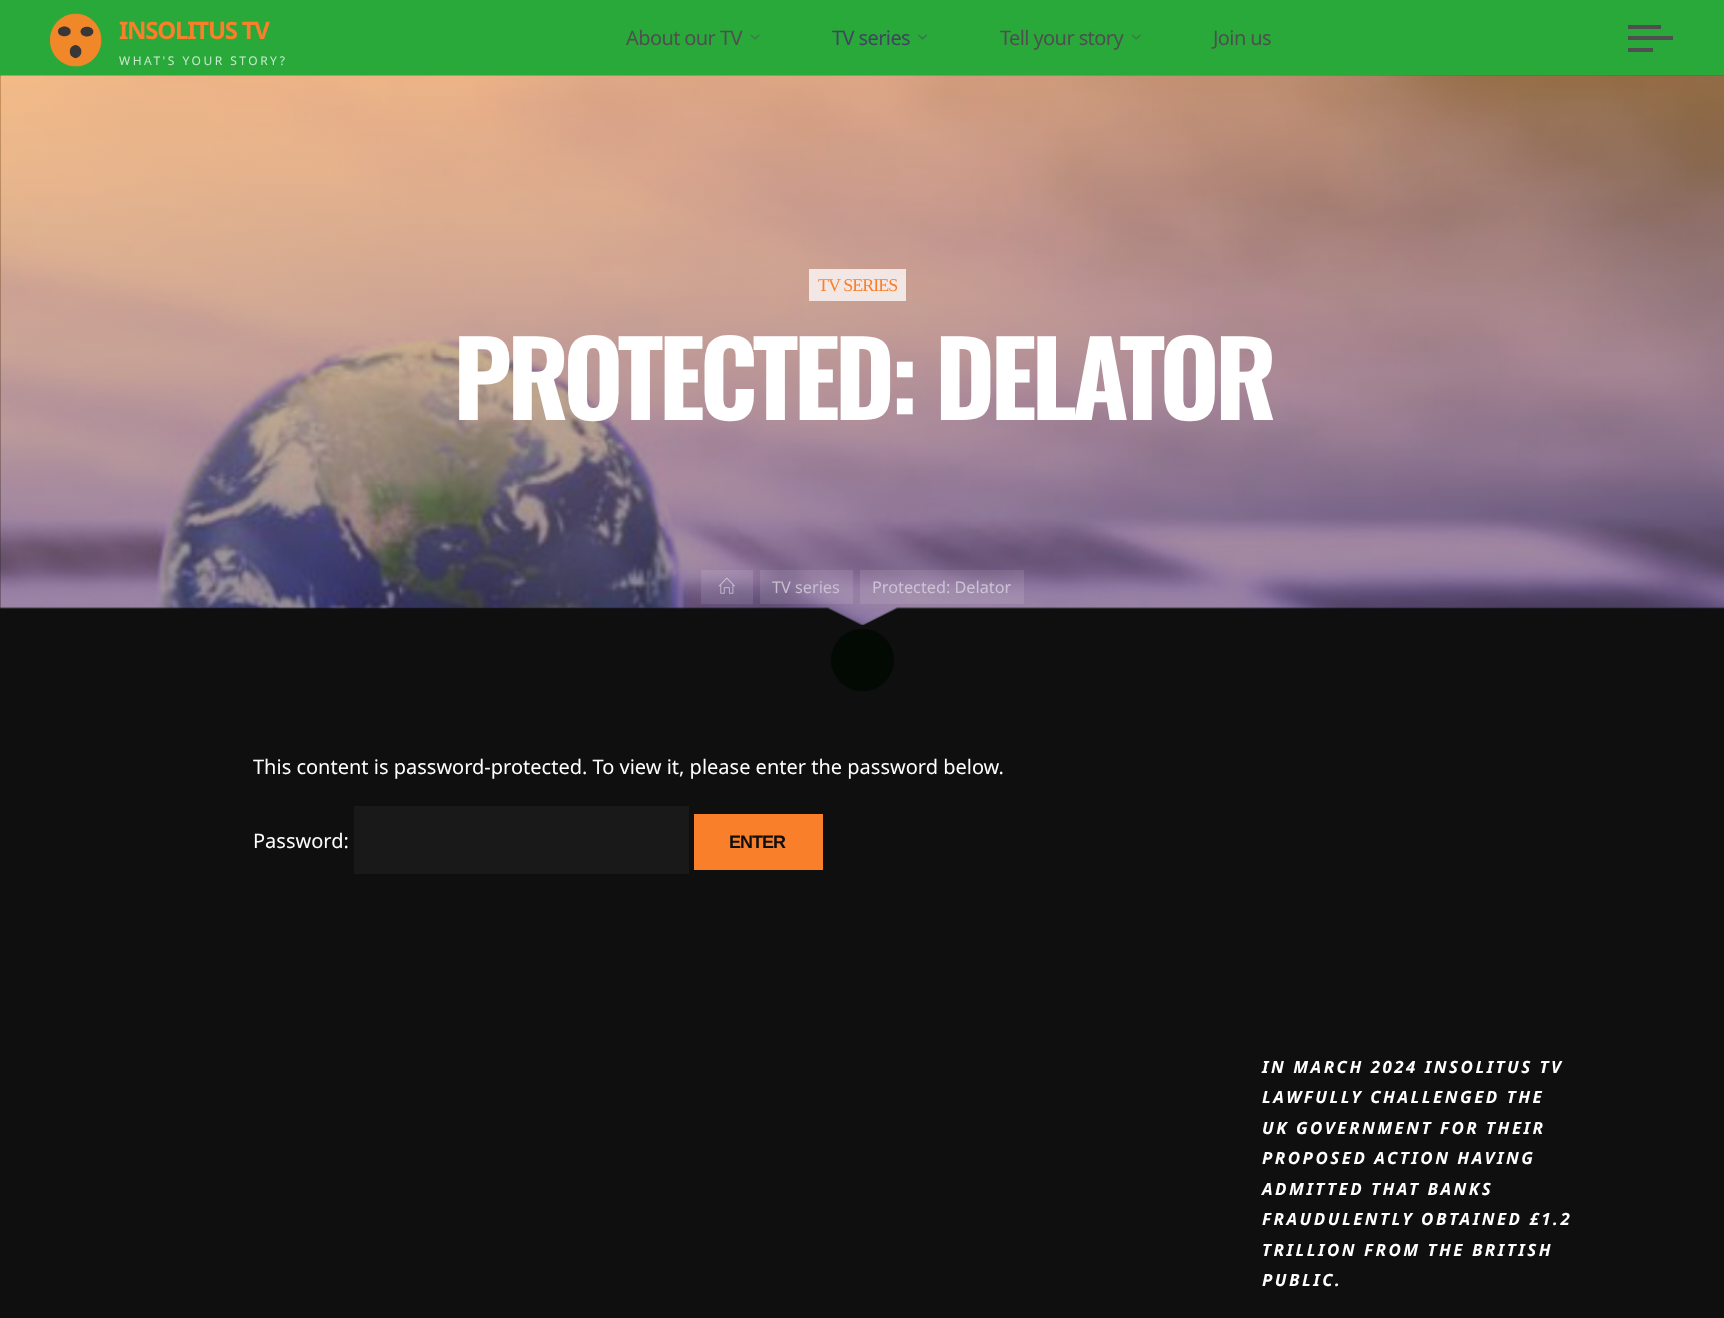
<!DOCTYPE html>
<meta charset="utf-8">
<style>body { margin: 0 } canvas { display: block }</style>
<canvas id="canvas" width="1724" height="1318"></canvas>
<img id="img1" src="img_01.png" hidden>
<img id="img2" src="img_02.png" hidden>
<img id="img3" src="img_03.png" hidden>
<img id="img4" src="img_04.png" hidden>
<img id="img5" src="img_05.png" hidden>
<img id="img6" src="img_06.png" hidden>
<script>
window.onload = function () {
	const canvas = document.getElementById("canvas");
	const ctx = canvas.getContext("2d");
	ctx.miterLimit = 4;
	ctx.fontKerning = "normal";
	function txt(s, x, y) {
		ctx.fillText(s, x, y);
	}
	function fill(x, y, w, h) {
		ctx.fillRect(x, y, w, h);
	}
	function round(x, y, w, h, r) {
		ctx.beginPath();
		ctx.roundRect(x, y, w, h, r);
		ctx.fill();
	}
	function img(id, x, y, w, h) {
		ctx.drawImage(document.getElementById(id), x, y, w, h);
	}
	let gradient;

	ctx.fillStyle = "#0F0F0F";
	fill(0, 0, 1724, 1318);
	ctx.fillStyle = "#29A93A";
	fill(0, 0, 1724, 75);
	img("img1", 50, 13, 52, 54);
	img("img2", 750, 34, 10, 6);
	img("img3", 918, 34, 9, 6);
	img("img4", 1131, 34, 10, 6);
	ctx.fillStyle = "#4F4F4F";
	fill(1628, 25, 33, 4);
	fill(1628, 36, 45, 4);
	fill(1628, 48, 25, 4);
	img("img5", 0, 75, 1724, 550);
	gradient = ctx.createLinearGradient(863, 75, 863, 625);
	gradient.addColorStop(0, "rgba(242, 150, 16, 0.5)");
	gradient.addColorStop(1, "rgba(63, 46, 77, 0.5)");
	ctx.fillStyle = gradient;
	ctx.beginPath();
	ctx.moveTo(0, 75);
	ctx.lineTo(0, 608);
	ctx.lineTo(828, 608);
	ctx.lineTo(862, 625);
	ctx.lineTo(897, 608);
	ctx.lineTo(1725, 608);
	ctx.lineTo(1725, 75);
	ctx.closePath();
	ctx.fill();
	ctx.fillStyle = "rgba(255, 255, 255, 0.75)";
	fill(809, 269, 97, 32);
	ctx.fillStyle = "rgba(255, 255, 255, 0.1)";
	fill(701, 570, 52, 34);
	img("img6", 718, 577, 17, 17);
	fill(760, 570, 93, 34);
	fill(860, 570, 164, 34);
	ctx.fillStyle = "#191919";
	fill(354, 806, 335, 68);
	ctx.fillStyle = "#F97F2A";
	fill(694, 814, 129, 56);
	ctx.fillStyle = "#020A03";
	round(831, 629, 63, 62, 31);
	ctx.letterSpacing = "-1.25px";
	ctx.font = "bold 24px Noto Sans";
	ctx.fillStyle = "#F97F2A";
	txt("INSOLITUS TV", 119, 39);
	ctx.letterSpacing = "2.5px";
	ctx.font = "12px Noto Sans";
	ctx.fillStyle = "#C9E9CE";
	txt("WHAT'S YOUR STORY?", 119, 65);
	ctx.letterSpacing = "-0.6px";
	ctx.font = "20px Noto Sans";
	ctx.fillStyle = "#4F4F4F";
	txt("About our TV", 626, 45);
	ctx.fillStyle = "#404561";
	txt("TV series", 832, 45);
	ctx.fillStyle = "#4F4F4F";
	txt("Tell your story", 1000, 45);
	txt("Join us", 1213, 45);
	ctx.letterSpacing = "-1px";
	ctx.font = "18px Liberation Serif";
	ctx.fillStyle = "#F97F2A";
	txt("TV SERIES", 818, 291);
	ctx.letterSpacing = "-5.2px";
	ctx.font = "bold 103.5px Oswald";
	ctx.fillStyle = "#FFFFFF";
	txt("PROTECTED: DELATOR", 453, 420);
	ctx.letterSpacing = "0px";
	ctx.font = "16.25px Noto Sans";
	ctx.fillStyle = "#C8BED0";
	txt("TV series", 772, 593);
	ctx.fillStyle = "#CEC3D5";
	txt("Protected: Delator", 872, 593);
	ctx.font = "20px Noto Sans";
	ctx.fillStyle = "#FFFFFF";
	txt("This content is password-protected. To view it, please enter the password below.", 253, 774);
	txt("Password:", 253, 848);
	ctx.letterSpacing = "-1px";
	ctx.font = "bold 18px Liberation Sans";
	ctx.fillStyle = "#0F0F0F";
	txt("ENTER", 729, 848);
	ctx.letterSpacing = "2.5px";
	ctx.font = "italic bold 16.9px Noto Sans";
	ctx.fillStyle = "#FFFFFF";
	txt("IN MARCH 2024 INSOLITUS TV", 1262, 1073);
	txt("LAWFULLY CHALLENGED THE", 1262, 1103);
	txt("UK GOVERNMENT FOR THEIR", 1262, 1134);
	txt("PROPOSED ACTION HAVING", 1262, 1164);
	txt("ADMITTED THAT BANKS", 1262, 1195);
	txt("FRAUDULENTLY OBTAINED £1.2", 1262, 1225);
	txt("TRILLION FROM THE BRITISH", 1262, 1256);
	txt("PUBLIC.", 1262, 1286);
};
</script>
